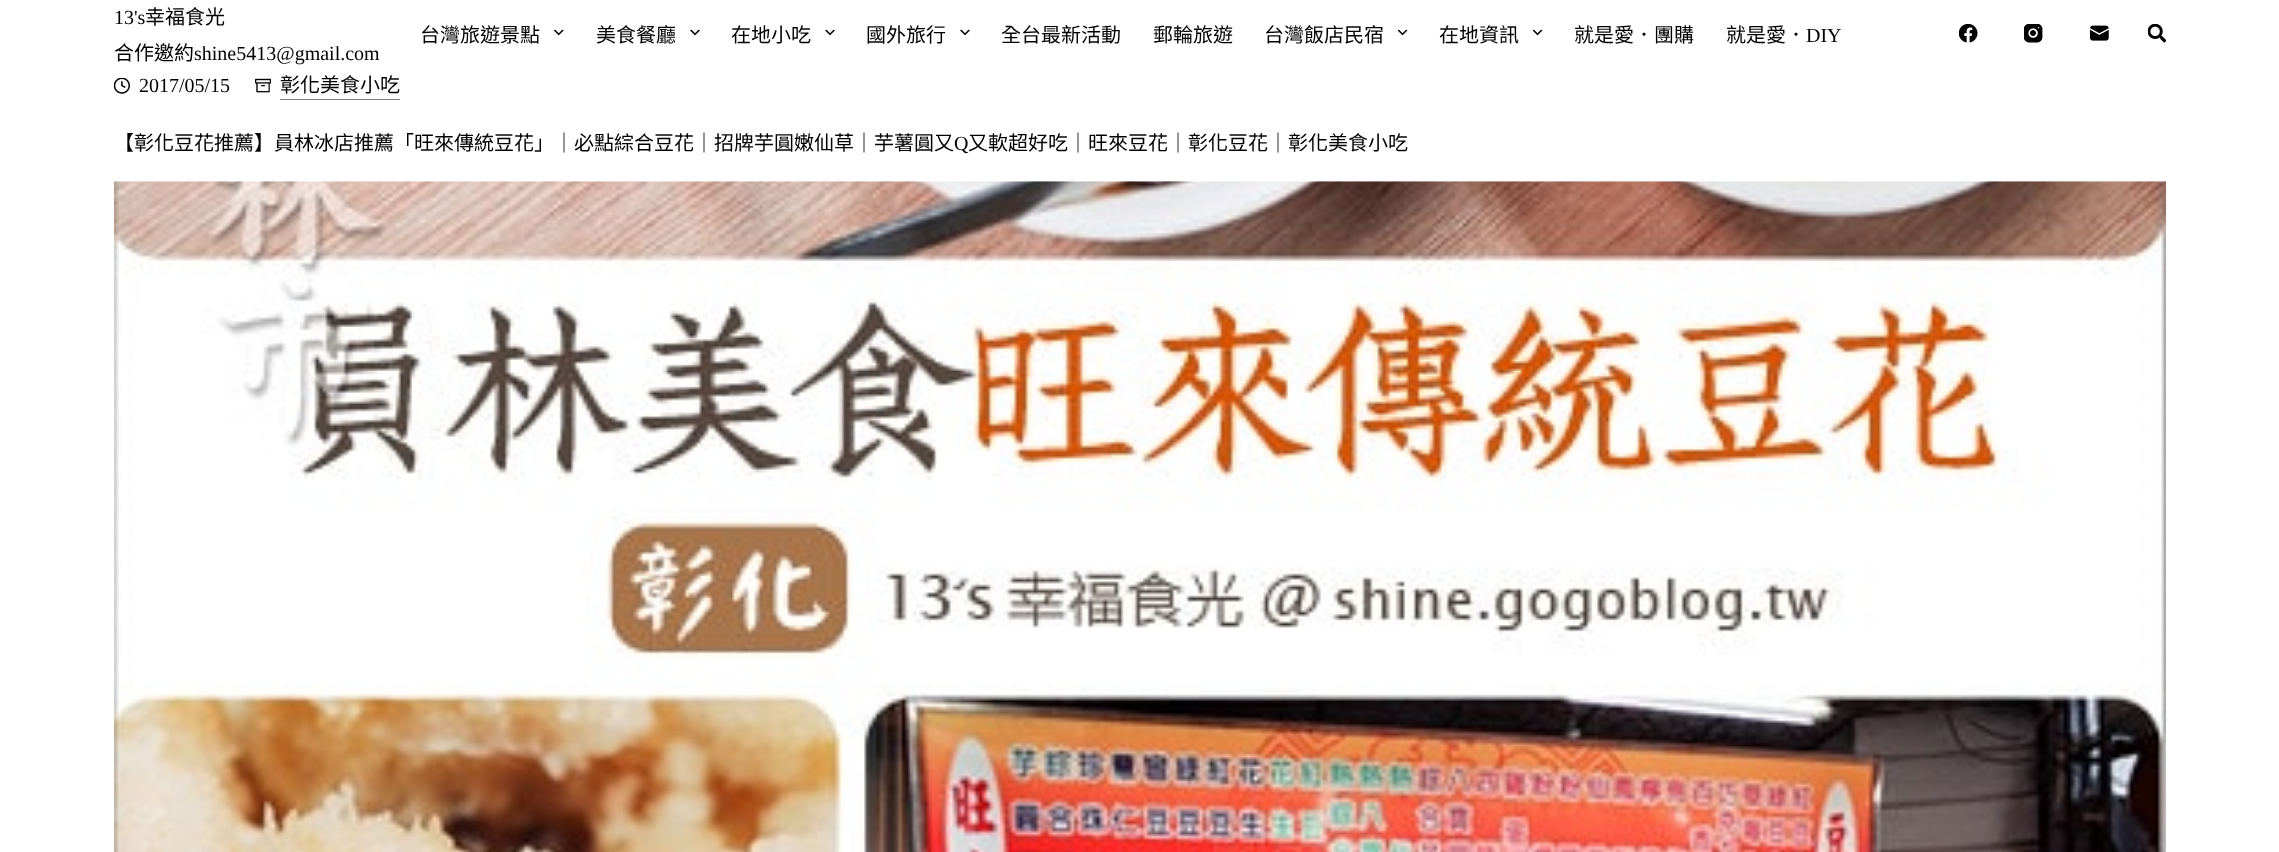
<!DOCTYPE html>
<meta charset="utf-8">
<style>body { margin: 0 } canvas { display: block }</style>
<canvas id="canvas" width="2279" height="852"></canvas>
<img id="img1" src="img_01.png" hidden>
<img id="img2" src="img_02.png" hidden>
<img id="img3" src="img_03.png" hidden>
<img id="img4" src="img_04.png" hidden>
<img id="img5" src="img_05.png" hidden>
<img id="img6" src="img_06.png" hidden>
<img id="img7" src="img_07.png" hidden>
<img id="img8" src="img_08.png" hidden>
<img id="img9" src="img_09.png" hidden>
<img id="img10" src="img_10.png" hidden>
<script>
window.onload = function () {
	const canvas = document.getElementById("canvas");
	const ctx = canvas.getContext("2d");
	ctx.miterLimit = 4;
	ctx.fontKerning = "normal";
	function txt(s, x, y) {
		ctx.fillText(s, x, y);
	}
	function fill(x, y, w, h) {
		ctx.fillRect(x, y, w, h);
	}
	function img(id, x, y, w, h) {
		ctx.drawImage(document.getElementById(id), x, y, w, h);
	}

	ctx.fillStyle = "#FFFFFF";
	fill(0, 0, 2279, 852);
	img("img1", 554, 29, 10, 7);
	img("img2", 690, 29, 10, 7);
	img("img2", 825, 29, 10, 7);
	img("img2", 960, 29, 10, 7);
	img("img3", 1398, 29, 10, 7);
	img("img3", 1533, 29, 10, 7);
	img("img4", 1959, 24, 19, 19);
	img("img5", 2024, 24, 19, 19);
	img("img6", 2090, 25, 19, 16);
	img("img7", 2148, 24, 18, 19);
	img("img8", 114, 78, 16, 16);
	img("img9", 255, 78, 16, 15);
	ctx.fillStyle = "#808080";
	fill(280, 99, 120, 1);
	img("img10", 113, 181, 2054, 671);
	ctx.font = "20px Liberation Serif";
	ctx.fillStyle = "#000000";
	txt("13's", 114, 24);
	ctx.font = "20px Noto Sans CJK TC";
	txt("幸福食光", 145, 24);
	txt("合作邀約", 114, 60);
	ctx.font = "20px Liberation Serif";
	txt("shine5413@gmail.com", 194, 60);
	ctx.font = "20px Noto Sans CJK TC";
	txt("台灣旅遊景點", 420, 42);
	txt("美食餐廳", 596, 42);
	txt("在地小吃", 731, 42);
	txt("國外旅行", 866, 42);
	txt("全台最新活動", 1001, 42);
	txt("郵輪旅遊", 1153, 42);
	txt("台灣飯店民宿", 1264, 42);
	txt("在地資訊", 1439, 42);
	txt("就是愛．團購", 1574, 42);
	txt("就是愛．", 1726, 42);
	ctx.font = "20px Liberation Serif";
	txt("DIY", 1806, 42);
	txt("2017/05/15", 139, 92);
	ctx.font = "20px Noto Sans CJK TC";
	txt("彰化美食小吃", 280, 92);
	txt("【彰化豆花推薦】員林冰店推薦「旺來傳統豆花」｜必點綜合豆花｜招牌芋圓嫩仙草｜芋薯圓又", 114, 150);
	ctx.font = "20px Liberation Serif";
	txt("Q", 954, 150);
	ctx.font = "20px Noto Sans CJK TC";
	txt("又軟超好吃｜旺來豆花｜彰化豆花｜彰化美食小吃", 968, 150);
};
</script>
